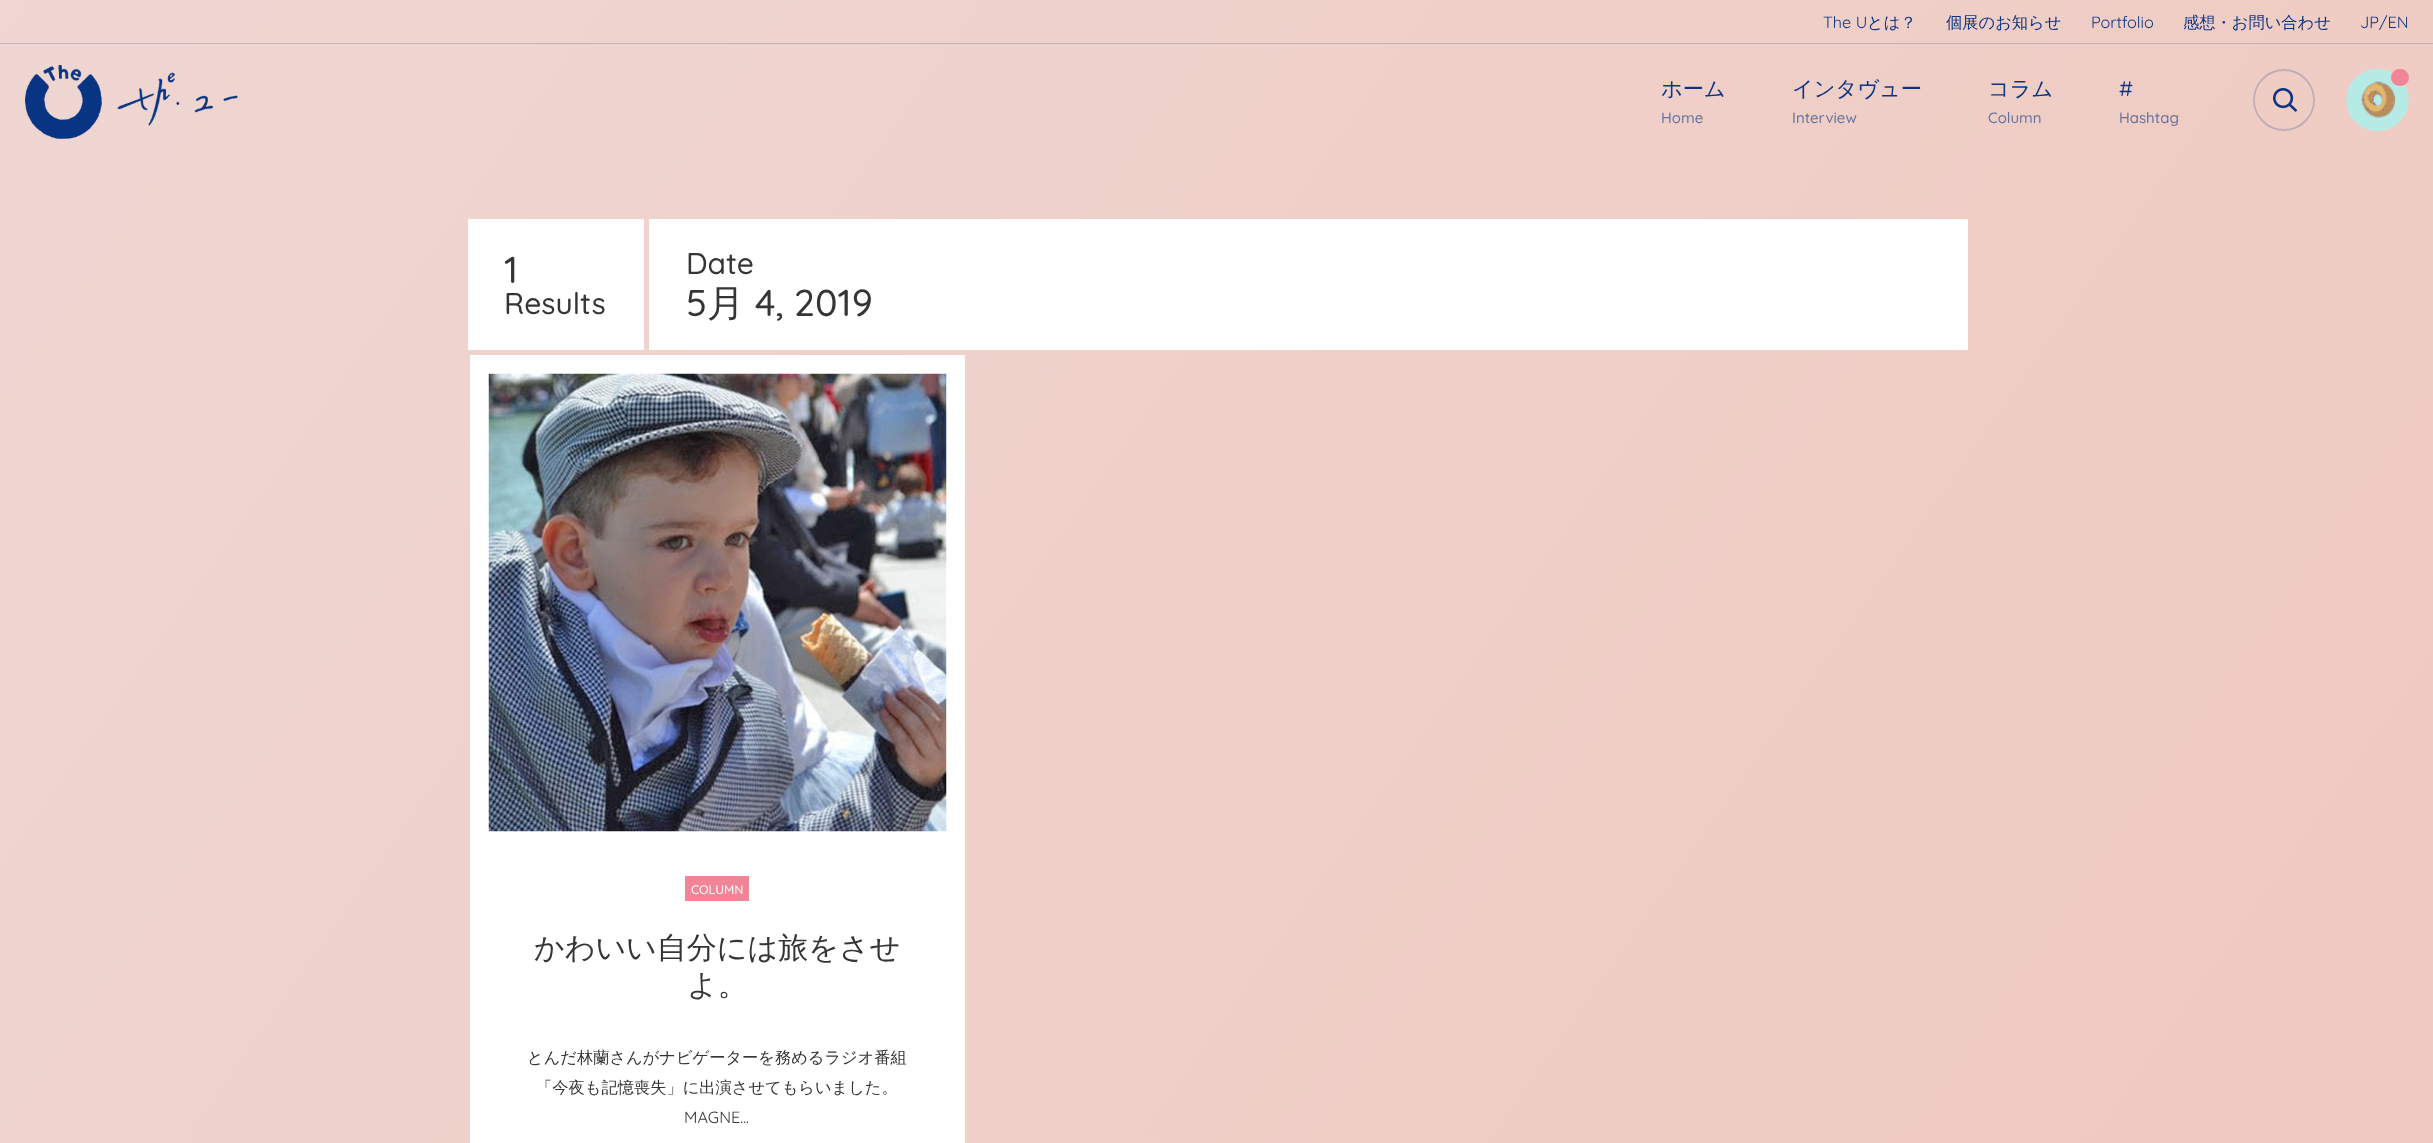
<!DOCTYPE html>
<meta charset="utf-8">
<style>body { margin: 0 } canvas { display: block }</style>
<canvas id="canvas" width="2433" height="1143"></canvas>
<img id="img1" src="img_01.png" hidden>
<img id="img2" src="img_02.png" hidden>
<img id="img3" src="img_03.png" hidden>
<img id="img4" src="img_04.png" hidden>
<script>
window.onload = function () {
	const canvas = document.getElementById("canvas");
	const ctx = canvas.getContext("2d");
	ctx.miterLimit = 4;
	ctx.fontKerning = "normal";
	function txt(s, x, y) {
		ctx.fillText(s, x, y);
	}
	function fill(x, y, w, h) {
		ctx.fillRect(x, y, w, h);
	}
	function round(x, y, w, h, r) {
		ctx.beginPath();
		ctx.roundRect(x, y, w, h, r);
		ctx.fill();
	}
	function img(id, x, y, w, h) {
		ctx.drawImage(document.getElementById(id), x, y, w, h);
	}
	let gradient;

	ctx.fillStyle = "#FFFFFF";
	fill(0, 0, 2433, 1143);
	gradient = ctx.createLinearGradient(107, -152, 2327, 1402);
	gradient.addColorStop(0, "#EFD6D2");
	gradient.addColorStop(1, "#EFC9BF");
	ctx.fillStyle = gradient;
	fill(0, 0, 2433, 1143);
	gradient = ctx.createLinearGradient(107, -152, 2327, 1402);
	gradient.addColorStop(0, "#C1B6C2");
	gradient.addColorStop(1, "#C1ABB3");
	ctx.fillStyle = gradient;
	fill(0, 43, 2433, 1);
	img("img1", 25, 65, 213, 74);
	ctx.save();
	ctx.beginPath();
	ctx.roundRect(2253, 69, 62, 62, 31);
	ctx.clip();
	ctx.beginPath();
	ctx.arc(2284, 100, 31, 0, Math.PI * 2);
	ctx.strokeStyle = "#C1AFB7";
	ctx.lineWidth = 3.8;
	ctx.stroke();
	ctx.restore();
	img("img2", 2273, 88, 25, 24);
	img("img3", 2346, 69, 63, 62);
	ctx.fillStyle = "#F18597";
	round(2391, 69, 18, 17, 8.5);
	ctx.fillStyle = "#FFFFFF";
	fill(468, 219, 176, 131);
	fill(649, 219, 1319, 131);
	fill(470, 355, 495, 788);
	img("img4", 488, 373, 459, 459);
	ctx.fillStyle = "#F18597";
	fill(685, 876, 64, 25);
	ctx.font = "16.25px Quicksand";
	ctx.fillStyle = "#0B3582";
	txt("The U", 1823, 28);
	ctx.font = "500 16.25px WenQuanYi Zen Hei";
	txt("とは？", 1867, 28);
	txt("個展のお知らせ", 1946, 28);
	ctx.font = "16.25px Quicksand";
	txt("Portfolio", 2091, 28);
	ctx.font = "500 16.25px WenQuanYi Zen Hei";
	txt("感想・お問い合わせ", 2183, 28);
	ctx.font = "16.25px Quicksand";
	txt("JP/EN", 2360, 28);
	ctx.font = "500 21.25px WenQuanYi Zen Hei";
	txt("ホーム", 1661, 96);
	ctx.font = "500 15px Quicksand";
	ctx.fillStyle = "#66739E";
	txt("Home", 1661, 123);
	ctx.font = "500 21.25px WenQuanYi Zen Hei";
	ctx.fillStyle = "#0B3582";
	txt("インタヴュー", 1792, 96);
	ctx.font = "500 15px Quicksand";
	ctx.fillStyle = "#66739E";
	txt("Interview", 1792, 123);
	ctx.font = "500 21.25px WenQuanYi Zen Hei";
	ctx.fillStyle = "#0B3582";
	txt("コラム", 1988, 96);
	ctx.font = "500 15px Quicksand";
	ctx.fillStyle = "#66739E";
	txt("Column", 1988, 123);
	ctx.font = "21.25px Quicksand";
	ctx.fillStyle = "#0B3582";
	txt("#", 2119, 96);
	ctx.font = "500 15px Quicksand";
	ctx.fillStyle = "#66739E";
	txt("Hashtag", 2119, 123);
	ctx.font = "500 37.5px Quicksand";
	ctx.fillStyle = "#353535";
	txt("1", 504, 283);
	ctx.font = "500 30px Quicksand";
	txt("Results", 504, 314);
	txt("Date", 686, 274);
	ctx.font = "500 37.5px Quicksand";
	txt("5", 686, 316);
	ctx.font = "500 37.5px WenQuanYi Zen Hei";
	txt("月", 707, 316);
	ctx.font = "500 37.5px Quicksand";
	txt("4, 2019", 755, 316);
	ctx.font = "500 12.5px Quicksand";
	ctx.fillStyle = "#FFFFFF";
	txt("COLUMN", 691, 894);
	ctx.font = "500 30px WenQuanYi Zen Hei";
	ctx.fillStyle = "#353535";
	txt("かわいい自分には旅をさせ", 534, 958);
	txt("よ。", 687, 995);
	ctx.font = "500 16.25px WenQuanYi Zen Hei";
	txt("とんだ林蘭さんがナビゲーターを務めるラジオ番組", 527, 1063);
	txt("「今夜も記憶喪失」に出演させてもらいました。", 536, 1093);
	ctx.font = "16.25px Quicksand";
	txt("MAGNE...", 684, 1123);
};
</script>
